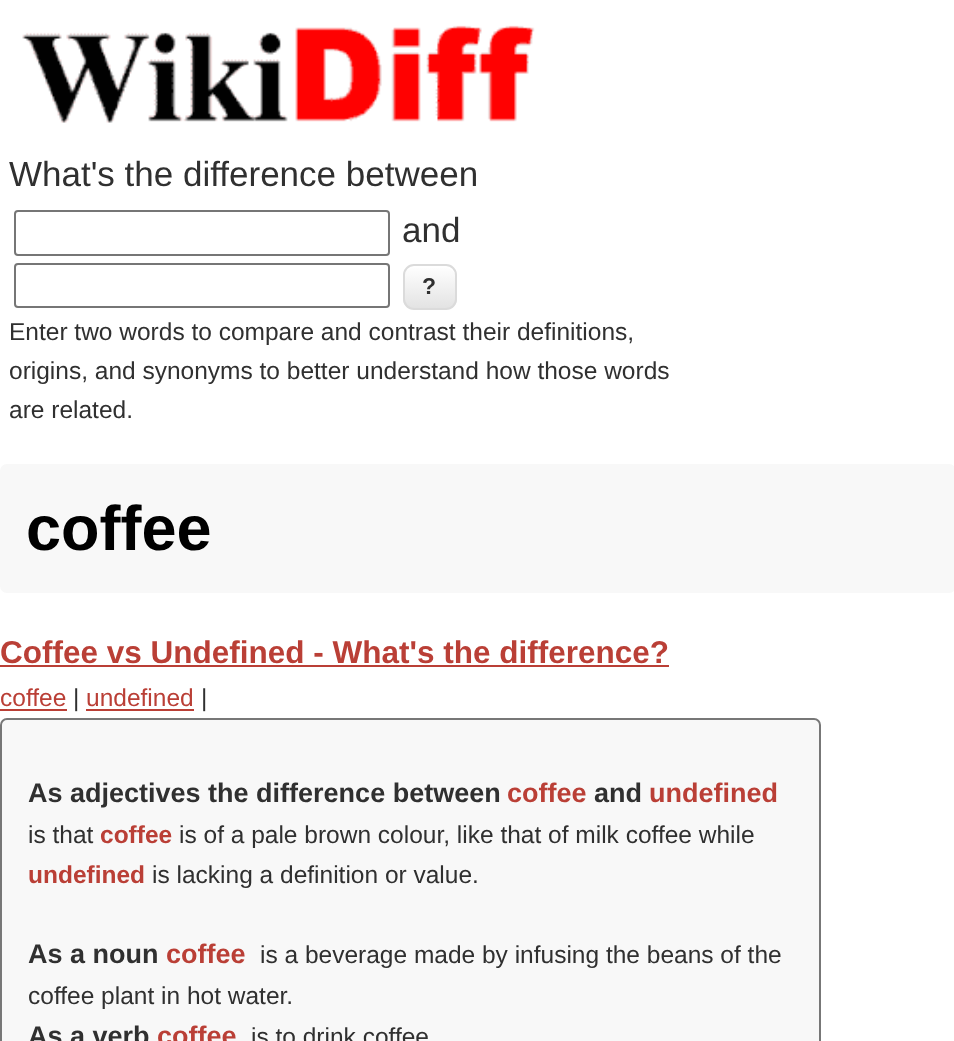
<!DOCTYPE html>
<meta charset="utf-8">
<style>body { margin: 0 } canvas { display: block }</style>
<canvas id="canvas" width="954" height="1041"></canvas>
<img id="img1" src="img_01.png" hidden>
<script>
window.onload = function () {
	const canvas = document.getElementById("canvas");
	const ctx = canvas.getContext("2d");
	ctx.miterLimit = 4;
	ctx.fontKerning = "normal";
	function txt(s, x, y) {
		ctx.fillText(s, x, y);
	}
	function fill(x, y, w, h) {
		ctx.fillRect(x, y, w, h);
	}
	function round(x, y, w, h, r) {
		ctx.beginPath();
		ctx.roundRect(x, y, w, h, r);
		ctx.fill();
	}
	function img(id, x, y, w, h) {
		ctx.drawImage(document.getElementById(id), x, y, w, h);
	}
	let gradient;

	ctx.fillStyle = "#FFFFFF";
	fill(0, 0, 954, 1041);
	img("img1", 22, 25, 513, 98);
	ctx.beginPath();
	ctx.roundRect(15, 211, 374, 44, 3);
	ctx.strokeStyle = "#767676";
	ctx.lineWidth = 2;
	ctx.stroke();
	ctx.beginPath();
	ctx.roundRect(15, 264, 374, 43, 3);
	ctx.stroke();
	ctx.save();
	ctx.beginPath();
	ctx.roundRect(403, 264, 54, 46, 11);
	ctx.clip();
	gradient = ctx.createLinearGradient(430, 266, 430, 308);
	gradient.addColorStop(0, "#FFFFFF");
	gradient.addColorStop(1, "#E3E3E3");
	ctx.fillStyle = gradient;
	fill(403, 266, 54, 42);
	ctx.restore();
	ctx.beginPath();
	ctx.moveTo(413, 268);
	ctx.lineTo(446, 268);
	ctx.bezierCurveTo(451, 268, 455, 272, 455, 276);
	ctx.bezierCurveTo(455, 266, 448, 266, 440, 266);
	ctx.lineTo(418, 266);
	ctx.bezierCurveTo(411, 266, 404, 266, 404, 276);
	ctx.bezierCurveTo(404, 272, 408, 268, 413, 268);
	ctx.closePath();
	ctx.fill();
	ctx.beginPath();
	ctx.roundRect(404, 265, 52, 44, 10);
	ctx.strokeStyle = "#DBDBDB";
	ctx.stroke();
	ctx.fillStyle = "#F8F8F8";
	round(0, 464, 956, 129, 7);
	ctx.fillStyle = "#BA3F36";
	fill(0, 665, 669, 2);
	fill(0, 709, 67, 2);
	fill(86, 709, 108, 2);
	ctx.fillStyle = "#F8F8F8";
	ctx.beginPath();
	ctx.roundRect(1, 719, 819, 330, 6);
	ctx.fill();
	ctx.strokeStyle = "#777777";
	ctx.stroke();
	ctx.font = "35px Liberation Sans";
	ctx.fillStyle = "#303030";
	txt("What's the difference between", 9, 186);
	txt("and", 402, 242);
	ctx.font = "bold 23px Liberation Sans";
	txt("?", 422, 294);
	ctx.font = "24.5px Liberation Sans";
	txt("Enter two words to compare and contrast their definitions,", 9, 340);
	txt("origins, and synonyms to better understand how those words", 9, 379);
	txt("are related.", 9, 418);
	ctx.font = "bold 63px Liberation Sans";
	ctx.fillStyle = "#000000";
	txt("coffee", 26, 550);
	ctx.font = "bold 31.5px Liberation Sans";
	ctx.fillStyle = "#BA3F36";
	txt("Coffee vs Undefined - What's the difference?", 0, 663);
	ctx.font = "24.5px Liberation Sans";
	txt("coffee", 0, 706);
	ctx.fillStyle = "#303030";
	txt("|", 73, 706);
	ctx.fillStyle = "#BA3F36";
	txt("undefined", 86, 706);
	ctx.fillStyle = "#303030";
	txt("|", 201, 706);
	ctx.font = "bold 27px Liberation Sans";
	txt("As adjectives the difference between", 28, 802);
	ctx.fillStyle = "#BA3F36";
	txt("coffee", 507, 802);
	ctx.fillStyle = "#303030";
	txt("and", 594, 802);
	ctx.fillStyle = "#BA3F36";
	txt("undefined", 649, 802);
	ctx.font = "24.5px Liberation Sans";
	ctx.fillStyle = "#303030";
	txt("is that", 28, 843);
	ctx.font = "bold 24.5px Liberation Sans";
	ctx.fillStyle = "#BA3F36";
	txt("coffee", 100, 843);
	ctx.font = "24.5px Liberation Sans";
	ctx.fillStyle = "#303030";
	txt("is of a pale brown colour, like that of milk coffee while", 179, 843);
	ctx.font = "bold 24.5px Liberation Sans";
	ctx.fillStyle = "#BA3F36";
	txt("undefined", 28, 883);
	ctx.font = "24.5px Liberation Sans";
	ctx.fillStyle = "#303030";
	txt("is lacking a definition or value.", 152, 883);
	ctx.font = "bold 27px Liberation Sans";
	txt("As a noun", 28, 963);
	ctx.fillStyle = "#BA3F36";
	txt("coffee", 166, 963);
	ctx.font = "24.5px Liberation Sans";
	ctx.fillStyle = "#303030";
	txt("is a beverage made by infusing the beans of the", 260, 963);
	txt("coffee plant in hot water.", 28, 1004);
	ctx.font = "bold 27px Liberation Sans";
	txt("As a verb", 28, 1045);
	ctx.fillStyle = "#BA3F36";
	txt("coffee", 157, 1045);
	ctx.font = "24.5px Liberation Sans";
	ctx.fillStyle = "#303030";
	txt("is to drink coffee", 251, 1045);
};
</script>
